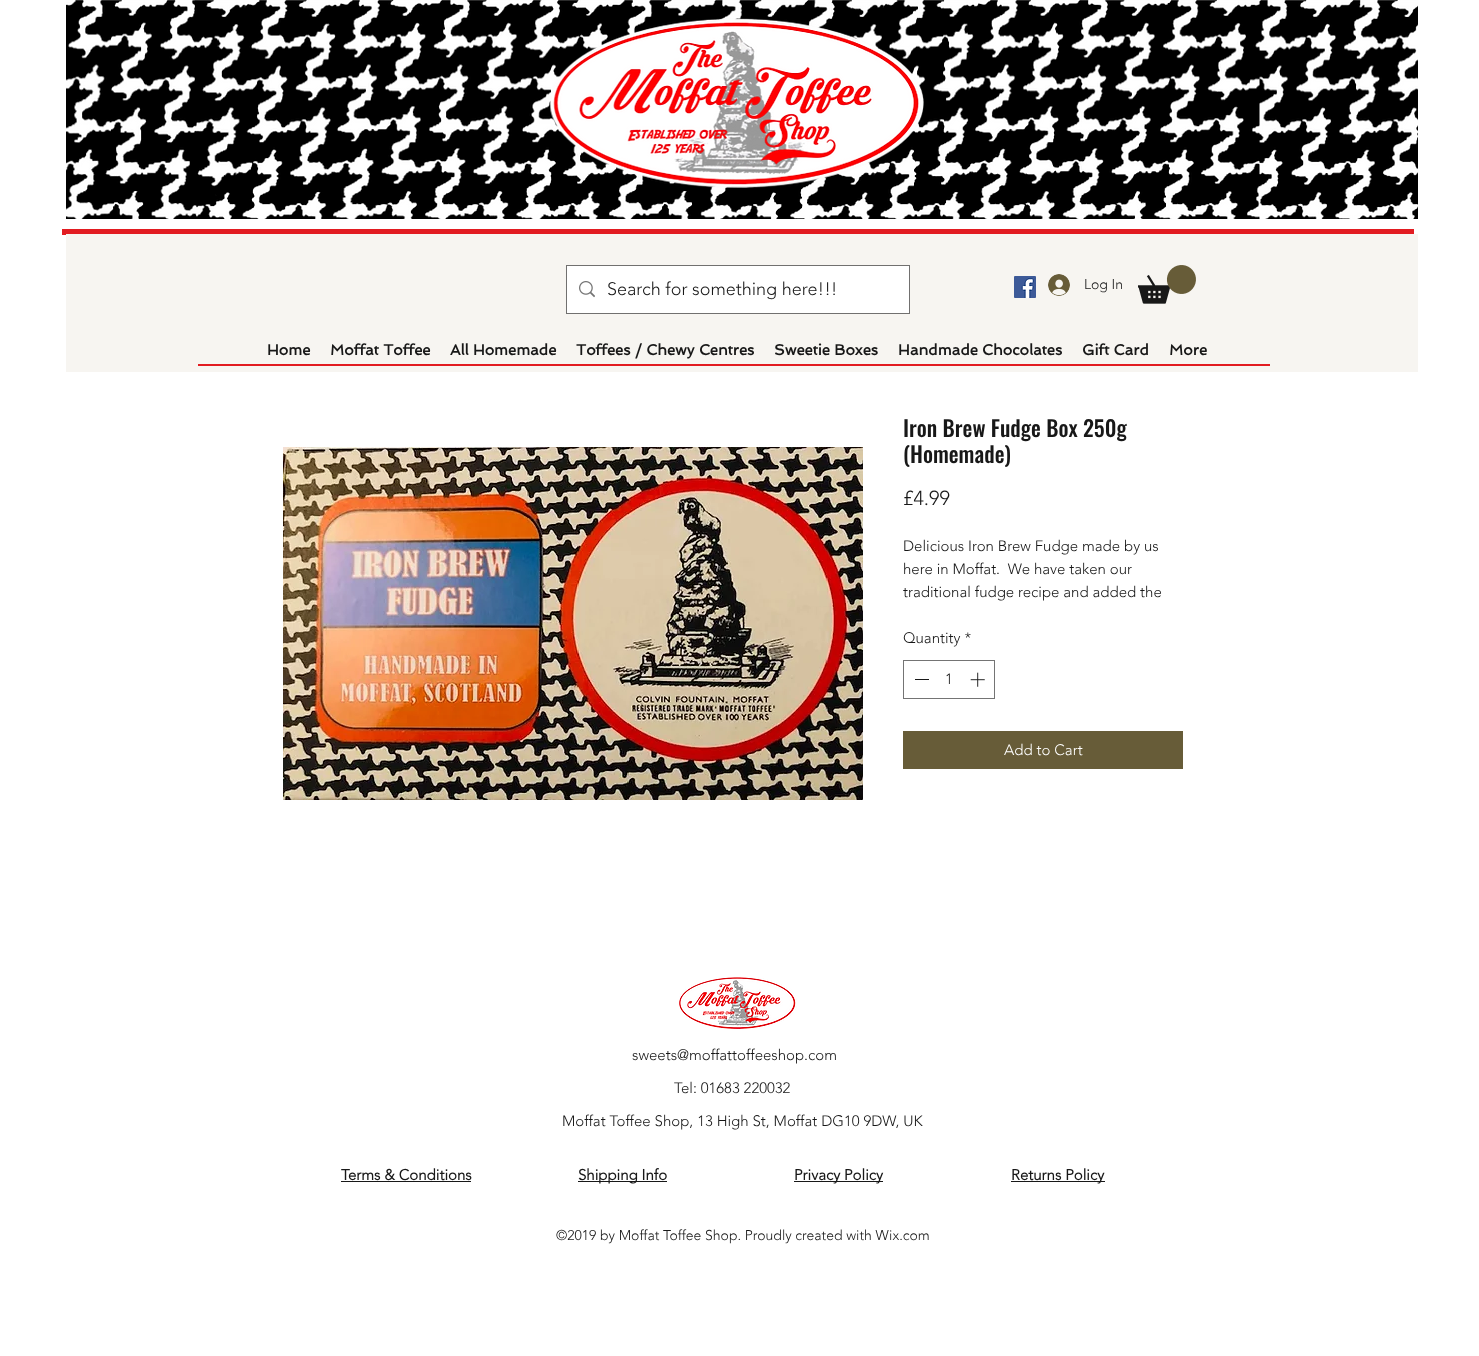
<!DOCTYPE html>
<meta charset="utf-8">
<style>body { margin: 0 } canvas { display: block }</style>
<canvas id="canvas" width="1479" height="1356"></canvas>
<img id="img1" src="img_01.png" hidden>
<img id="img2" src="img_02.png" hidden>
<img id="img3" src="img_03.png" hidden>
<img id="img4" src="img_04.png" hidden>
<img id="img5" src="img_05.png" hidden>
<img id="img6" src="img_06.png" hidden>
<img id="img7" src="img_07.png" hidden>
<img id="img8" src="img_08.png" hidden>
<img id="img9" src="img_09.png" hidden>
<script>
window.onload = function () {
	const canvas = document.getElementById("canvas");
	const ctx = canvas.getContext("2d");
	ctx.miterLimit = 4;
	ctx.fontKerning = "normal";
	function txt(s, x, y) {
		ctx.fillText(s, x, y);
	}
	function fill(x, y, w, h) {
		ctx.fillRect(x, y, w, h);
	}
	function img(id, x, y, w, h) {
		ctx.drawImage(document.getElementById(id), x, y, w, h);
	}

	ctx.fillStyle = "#FFFFFF";
	fill(0, 0, 1479, 1356);
	img("img1", 66, 0, 1352, 219);
	img("img2", 550, 18, 374, 170);
	ctx.fillStyle = "#E21C21";
	fill(62, 229, 1352, 6);
	ctx.fillStyle = "#F7F5F1";
	fill(66, 234, 1352, 138);
	ctx.strokeStyle = "#71706F";
	ctx.strokeRect(566.5, 265.5, 343, 48);
	ctx.fillStyle = "#FFFFFF";
	fill(567, 266, 342, 47);
	img("img3", 579, 281, 16, 17);
	img("img4", 1014, 276, 22, 22);
	img("img5", 1048, 274, 22, 22);
	img("img6", 1138, 265, 58, 39);
	ctx.fillStyle = "#E21C21";
	fill(198, 364, 1072, 2);
	img("img7", 283, 447, 580, 353);
	ctx.strokeStyle = "#747474";
	ctx.strokeRect(903.5, 660.5, 91, 38);
	ctx.fillStyle = "#181818";
	fill(915, 679, 14, 1);
	img("img8", 970, 672, 15, 15);
	ctx.fillStyle = "#675C38";
	fill(903, 731, 280, 38);
	img("img9", 679, 977, 118, 52);
	ctx.fillStyle = "#181818";
	fill(341, 1181, 130, 1);
	fill(578, 1181, 89, 1);
	fill(794, 1181, 89, 1);
	fill(1011, 1181, 94, 1);
	ctx.font = "300 18px 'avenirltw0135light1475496'";
	txt("Search for something here!!!", 607, 295);
	ctx.font = "300 14px 'avenirltw0135light1475496'";
	txt("Log In", 1084, 289);
	ctx.font = "bold 15px Spinnaker";
	txt("Home", 267, 355);
	txt("Moffat Toffee", 330, 355);
	txt("All Homemade", 450, 355);
	txt("Toffees / Chewy Centres", 576, 355);
	txt("Sweetie Boxes", 774, 355);
	txt("Handmade Chocolates", 898, 355);
	txt("Gift Card", 1082, 355);
	txt("More", 1169, 355);
	ctx.font = "500 22px Oswald";
	txt("Iron Brew Fudge Box 250g", 903, 437);
	txt("(Homemade)", 903, 463);
	ctx.font = "300 20px 'avenirltw0135light1475496'";
	txt("£4.99", 903, 505);
	ctx.font = "300 15px 'avenirltw0135light1475496'";
	txt("Delicious Iron Brew Fudge made by us", 903, 551);
	txt("here in Moffat.  We have taken our", 903, 574);
	txt("traditional fudge recipe and added the", 903, 597);
	txt("Quantity *", 903, 643);
	txt("1", 945, 684);
	ctx.fillStyle = "#FFFFFF";
	txt("Add to Cart", 1004, 755);
	ctx.fillStyle = "#181818";
	txt("sweets@moffattoffeeshop.com", 632, 1060);
	txt("Tel: 01683 220032", 674, 1093);
	txt("Moffat Toffee Shop, 13 High St, Moffat DG10 9DW, UK", 562, 1126);
	ctx.font = "bold 15px 'avenirltw0135light1475496'";
	txt("Terms & Conditions", 341, 1180);
	txt("Shipping Info", 578, 1180);
	txt("Privacy Policy", 794, 1180);
	txt("Returns Policy", 1011, 1180);
	ctx.font = "300 14px 'avenirltw0135light1475496'";
	txt("©2019 by Moffat Toffee Shop. Proudly created with Wix.com", 556, 1240);
};
</script>
